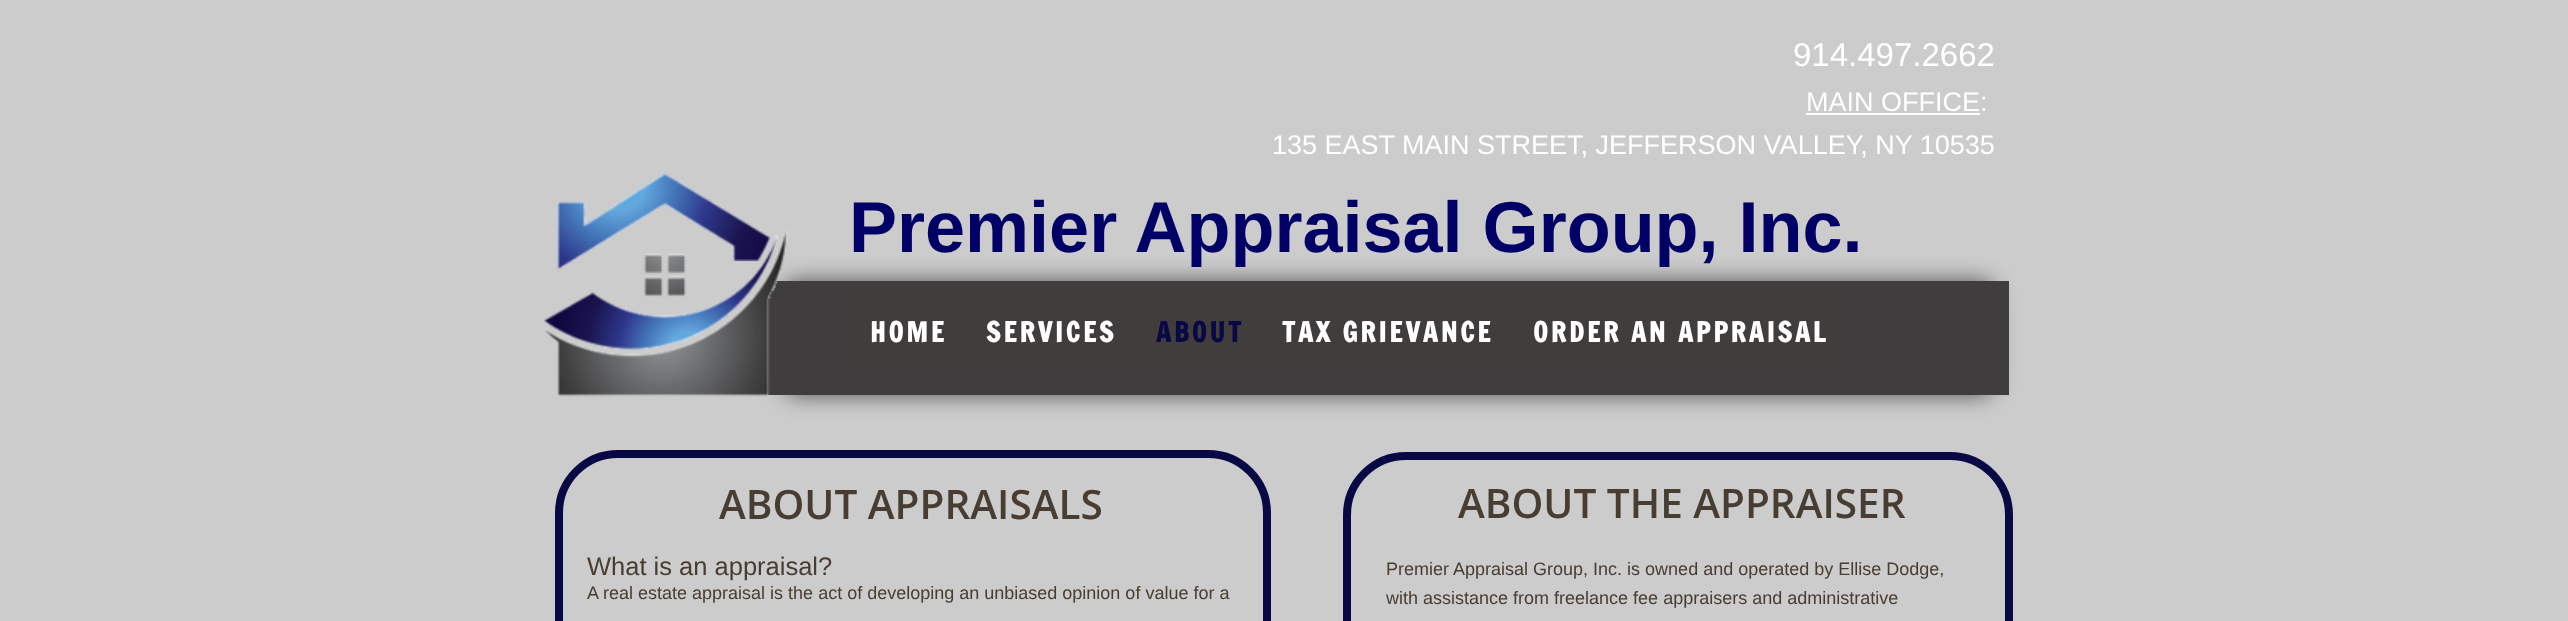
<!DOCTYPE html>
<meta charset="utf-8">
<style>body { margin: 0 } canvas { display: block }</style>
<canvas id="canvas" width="2568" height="621"></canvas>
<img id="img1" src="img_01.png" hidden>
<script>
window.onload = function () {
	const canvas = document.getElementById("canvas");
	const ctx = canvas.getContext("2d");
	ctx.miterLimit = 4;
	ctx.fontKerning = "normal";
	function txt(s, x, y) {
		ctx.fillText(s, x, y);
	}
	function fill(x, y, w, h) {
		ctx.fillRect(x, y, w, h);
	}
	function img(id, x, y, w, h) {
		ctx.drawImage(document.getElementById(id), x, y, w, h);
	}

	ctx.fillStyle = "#CCCCCC";
	fill(0, 0, 2568, 621);
	ctx.fillStyle = "#FFFFFF";
	fill(1806, 113, 174, 2);
	ctx.fillStyle = "rgba(0, 0, 0, 0.6)";
	ctx.filter = "blur(11px)";
	ctx.beginPath();
	ctx.roundRect(783, 281, 1211, 114, 15);
	ctx.fill();
	ctx.filter = "none";
	ctx.fillStyle = "#3F3D3D";
	fill(768, 281, 1241, 114);
	img("img1", 543, 173, 245, 224);
	ctx.fillStyle = "#423D3D";
	fill(851, 293, 997, 78);
	ctx.beginPath();
	ctx.roundRect(559, 454, 708, 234, 59);
	ctx.strokeStyle = "#080844";
	ctx.lineWidth = 8;
	ctx.stroke();
	ctx.beginPath();
	ctx.roundRect(1347, 456, 662, 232, 59);
	ctx.stroke();
	ctx.font = "33px Liberation Sans";
	ctx.fillStyle = "#FFFFFF";
	txt("914.497.2662", 1793, 66);
	ctx.font = "27px Liberation Sans";
	txt("MAIN OFFICE:", 1806, 111);
	txt("135 EAST MAIN STREET, JEFFERSON VALLEY, NY 10535", 1272, 154);
	ctx.font = "bold 72px Liberation Sans";
	ctx.fillStyle = "#000066";
	txt("Premier Appraisal Group, Inc.", 849, 252);
	ctx.letterSpacing = "3px";
	ctx.font = "bold 27px Francois One";
	ctx.fillStyle = "#FFFFFF";
	txt("HOME", 870, 342);
	txt("SERVICES", 986, 342);
	ctx.fillStyle = "#080844";
	txt("ABOUT", 1156, 342);
	ctx.fillStyle = "#FFFFFF";
	txt("TAX GRIEVANCE", 1282, 342);
	txt("ORDER AN APPRAISAL", 1533, 342);
	ctx.letterSpacing = "0px";
	ctx.font = "600 40.5px Open Sans";
	ctx.fillStyle = "#473D32";
	txt("ABOUT APPRAISALS", 719, 519);
	ctx.font = "25.5px Liberation Sans";
	txt("What is an appraisal?", 587, 575);
	ctx.font = "18px Liberation Sans";
	txt("A real estate appraisal is the act of developing an unbiased opinion of value for a", 587, 599);
	ctx.font = "600 40.5px Open Sans";
	txt("ABOUT THE APPRAISER", 1458, 518);
	ctx.font = "18px Liberation Sans";
	txt("Premier Appraisal Group, Inc. is owned and operated by Ellise Dodge,", 1386, 575);
	txt("with assistance from freelance fee appraisers and administrative", 1386, 604);
};
</script>
